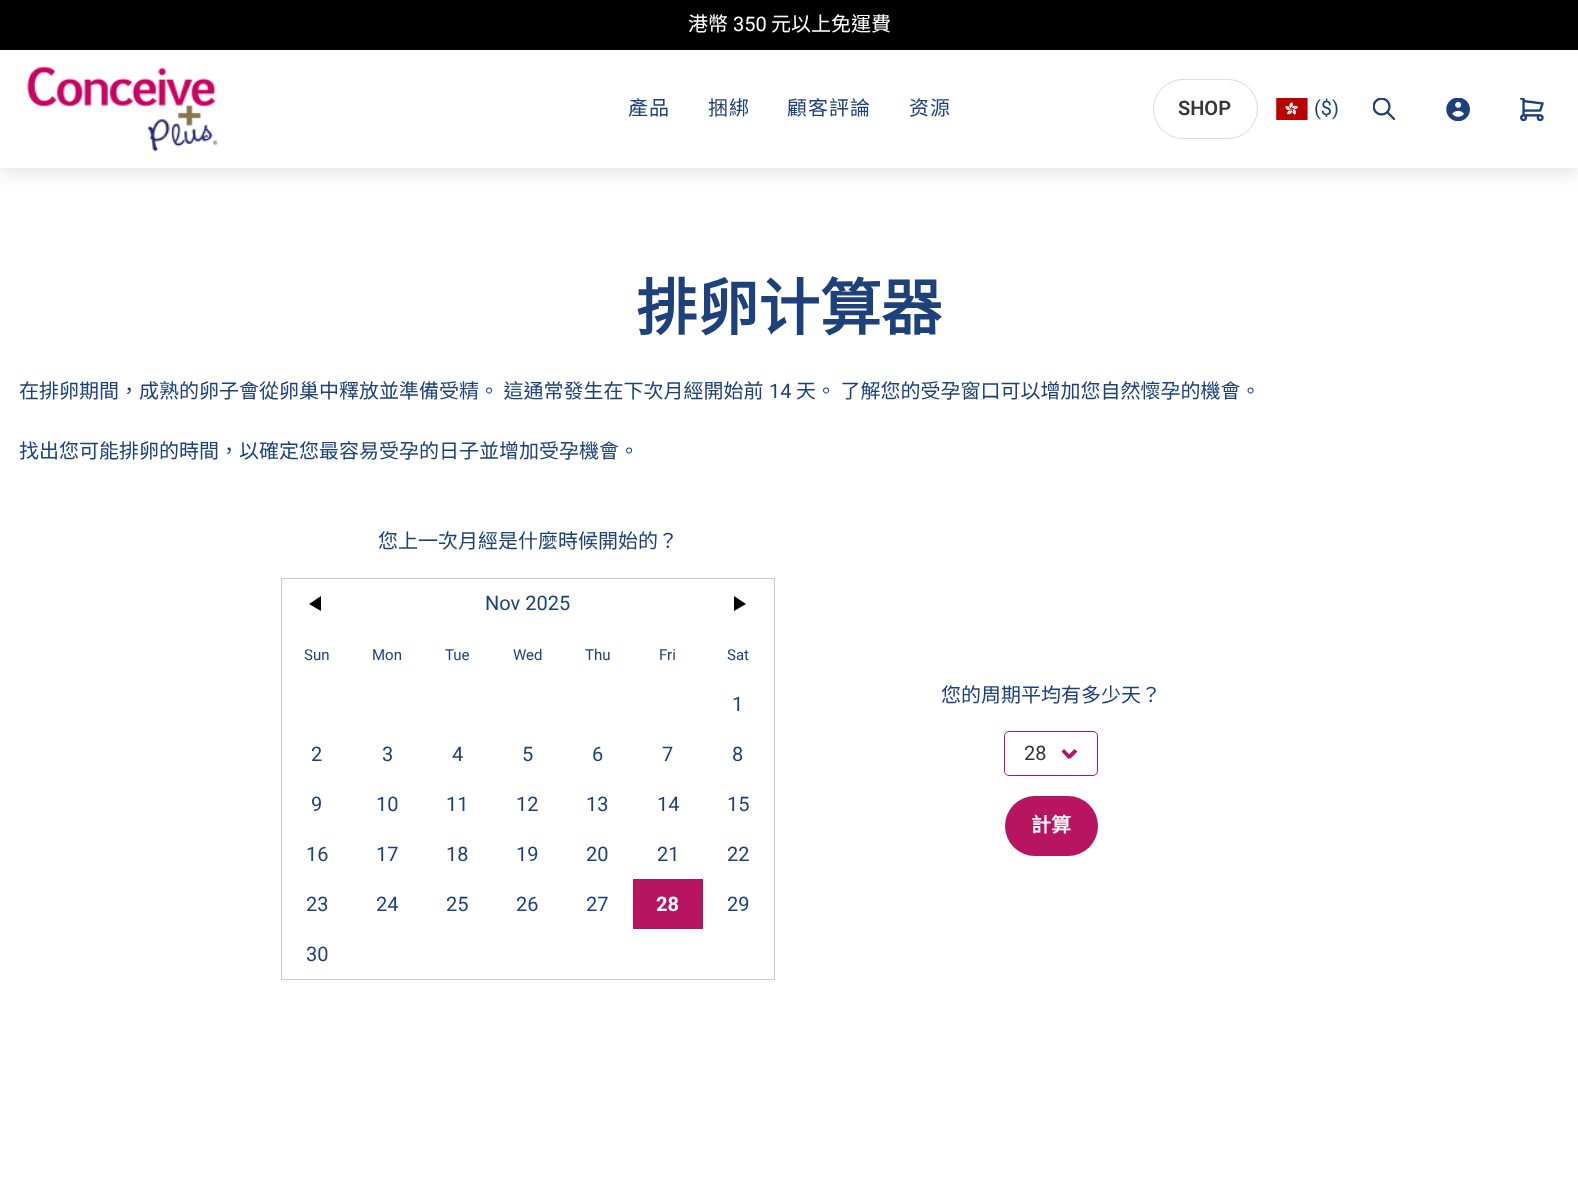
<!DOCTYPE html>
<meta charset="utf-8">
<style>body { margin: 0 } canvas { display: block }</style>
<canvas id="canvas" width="1578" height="1200"></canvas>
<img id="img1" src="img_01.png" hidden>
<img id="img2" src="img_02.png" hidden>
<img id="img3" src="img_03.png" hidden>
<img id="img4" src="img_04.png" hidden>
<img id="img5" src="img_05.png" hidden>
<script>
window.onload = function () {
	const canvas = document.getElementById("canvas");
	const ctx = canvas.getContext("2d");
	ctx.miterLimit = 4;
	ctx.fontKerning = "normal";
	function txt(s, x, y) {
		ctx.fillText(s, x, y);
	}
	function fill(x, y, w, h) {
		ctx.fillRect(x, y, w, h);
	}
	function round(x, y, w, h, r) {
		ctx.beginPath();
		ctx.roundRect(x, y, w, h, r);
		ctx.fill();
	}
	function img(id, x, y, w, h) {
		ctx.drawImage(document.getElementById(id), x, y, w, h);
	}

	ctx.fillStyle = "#FFFFFF";
	fill(0, 0, 1578, 1200);
	ctx.fillStyle = "#000000";
	fill(0, 0, 1578, 50);
	ctx.fillStyle = "rgba(0, 0, 0, 0.09)";
	ctx.filter = "blur(7.5px)";
	ctx.beginPath();
	ctx.rect(0, 58, 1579, 117);
	ctx.fill();
	ctx.filter = "none";
	ctx.fillStyle = "#FFFFFF";
	fill(0, 50, 1578, 118);
	img("img1", 27, 66, 191, 86);
	ctx.beginPath();
	ctx.roundRect(1153.5, 79.5, 104, 59, 29.5);
	ctx.strokeStyle = "#DBDBDB";
	ctx.stroke();
	img("img2", 1276, 98, 32, 22);
	img("img3", 1373, 98, 23, 22);
	img("img4", 1446, 98, 24, 23);
	img("img5", 1520, 98, 24, 23);
	ctx.strokeStyle = "#CCCCCC";
	ctx.strokeRect(281.5, 578.5, 493, 401);
	ctx.fillStyle = "#000000";
	ctx.beginPath();
	ctx.moveTo(321, 596);
	ctx.lineTo(321, 611);
	ctx.lineTo(309, 604);
	ctx.closePath();
	ctx.fill();
	ctx.beginPath();
	ctx.moveTo(734, 611);
	ctx.lineTo(734, 596);
	ctx.lineTo(746, 604);
	ctx.closePath();
	ctx.fill();
	ctx.fillStyle = "#B71561";
	fill(633, 879, 70, 50);
	ctx.beginPath();
	ctx.roundRect(1004.5, 731.5, 93, 44, 4.5);
	ctx.strokeStyle = "#B71561";
	ctx.stroke();
	ctx.beginPath();
	ctx.moveTo(1067.5, 756);
	ctx.lineTo(1074.5, 749);
	ctx.lineTo(1077.5, 751.5);
	ctx.lineTo(1070, 759);
	ctx.closePath();
	ctx.fill();
	ctx.beginPath();
	ctx.moveTo(1061.5, 751.5);
	ctx.lineTo(1064, 749);
	ctx.lineTo(1071, 756);
	ctx.lineTo(1068.5, 759);
	ctx.closePath();
	ctx.fill();
	round(1005, 796, 93, 60, 30);
	ctx.font = "20px Noto Sans CJK TC";
	ctx.fillStyle = "#FFFFFF";
	txt("港幣", 688, 31);
	ctx.font = "20px Roboto";
	txt("350", 733, 31);
	ctx.font = "20px Noto Sans CJK TC";
	txt("元以上免運費", 771, 31);
	ctx.letterSpacing = "1px";
	ctx.fillStyle = "#1E417C";
	txt("產品", 628, 115);
	txt("捆綁", 708, 115);
	txt("顧客評論", 787, 115);
	txt("资源", 909, 115);
	ctx.letterSpacing = "0px";
	ctx.font = "600 20px Roboto";
	ctx.fillStyle = "#363636";
	txt("SHOP", 1178, 115);
	ctx.font = "20px Roboto";
	ctx.fillStyle = "#1E417C";
	txt("($)", 1314, 115);
	ctx.font = "bold 61.25px Noto Sans CJK TC";
	txt("排卵计算器", 636, 330);
	ctx.font = "20px Noto Sans CJK TC";
	txt("在排卵期間，成熟的卵子會從卵巢中釋放並準備受精。 這通常發生在下次月經開始前", 19, 398);
	ctx.font = "20px Roboto";
	txt("14", 769, 398);
	ctx.font = "20px Noto Sans CJK TC";
	txt("天。 了解您的受孕窗口可以增加您自然懷孕的機會。", 796, 398);
	txt("找出您可能排卵的時間，以確定您最容易受孕的日子並增加受孕機會。", 19, 458);
	txt("您上一次月經是什麼時候開始的？", 378, 548);
	ctx.font = "20px Roboto";
	txt("Nov 2025", 485, 610);
	ctx.font = "15px Roboto";
	txt("Sun", 304, 660);
	txt("Mon", 372, 660);
	txt("Tue", 445, 660);
	txt("Wed", 513, 660);
	txt("Thu", 585, 660);
	txt("Fri", 659, 660);
	txt("Sat", 727, 660);
	ctx.font = "20px Roboto";
	txt("1", 732, 711);
	txt("2", 311, 761);
	txt("3", 382, 761);
	txt("4", 452, 761);
	txt("5", 522, 761);
	txt("6", 592, 761);
	txt("7", 662, 761);
	txt("8", 732, 761);
	txt("9", 311, 811);
	txt("10", 376, 811);
	txt("11", 446, 811);
	txt("12", 516, 811);
	txt("13", 586, 811);
	txt("14", 657, 811);
	txt("15", 727, 811);
	txt("16", 306, 861);
	txt("17", 376, 861);
	txt("18", 446, 861);
	txt("19", 516, 861);
	txt("20", 586, 861);
	txt("21", 657, 861);
	txt("22", 727, 861);
	txt("23", 306, 911);
	txt("24", 376, 911);
	txt("25", 446, 911);
	txt("26", 516, 911);
	txt("27", 586, 911);
	ctx.font = "bold 20px Roboto";
	ctx.fillStyle = "#FFFFFF";
	txt("28", 656, 911);
	ctx.font = "20px Roboto";
	ctx.fillStyle = "#1E417C";
	txt("29", 727, 911);
	txt("30", 306, 961);
	ctx.font = "20px Noto Sans CJK TC";
	txt("您的周期平均有多少天？", 941, 702);
	ctx.font = "20px Roboto";
	ctx.fillStyle = "#363636";
	txt("28", 1024, 760);
	ctx.font = "bold 20px Noto Sans CJK TC";
	ctx.fillStyle = "#FFFFFF";
	txt("計算", 1031, 832);
};
</script>
